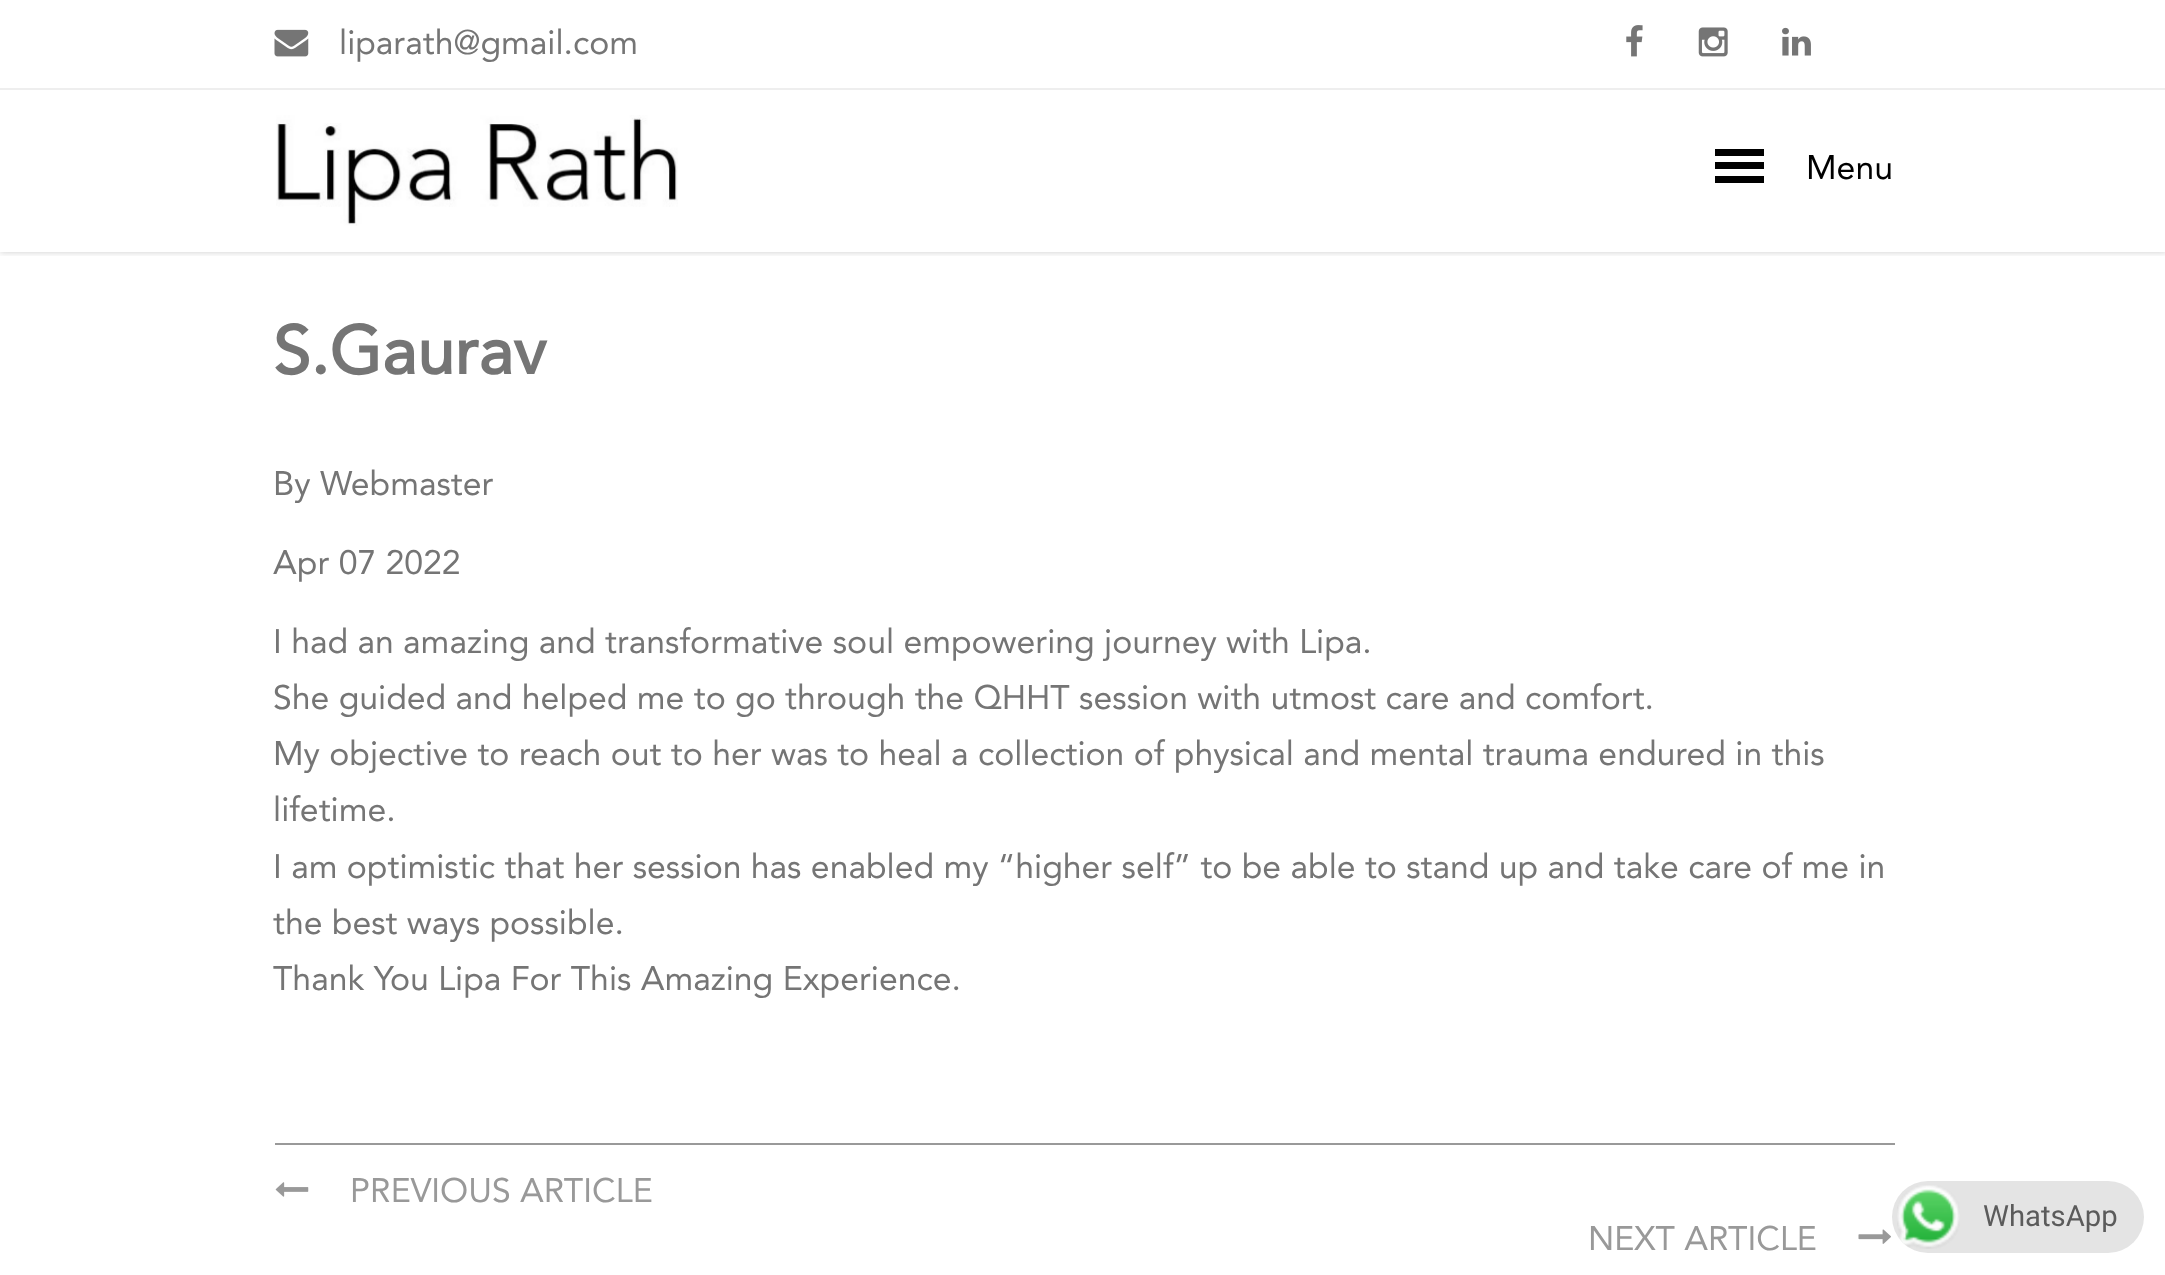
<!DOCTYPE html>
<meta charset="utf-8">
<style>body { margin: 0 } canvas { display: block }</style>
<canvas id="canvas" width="2165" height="1275"></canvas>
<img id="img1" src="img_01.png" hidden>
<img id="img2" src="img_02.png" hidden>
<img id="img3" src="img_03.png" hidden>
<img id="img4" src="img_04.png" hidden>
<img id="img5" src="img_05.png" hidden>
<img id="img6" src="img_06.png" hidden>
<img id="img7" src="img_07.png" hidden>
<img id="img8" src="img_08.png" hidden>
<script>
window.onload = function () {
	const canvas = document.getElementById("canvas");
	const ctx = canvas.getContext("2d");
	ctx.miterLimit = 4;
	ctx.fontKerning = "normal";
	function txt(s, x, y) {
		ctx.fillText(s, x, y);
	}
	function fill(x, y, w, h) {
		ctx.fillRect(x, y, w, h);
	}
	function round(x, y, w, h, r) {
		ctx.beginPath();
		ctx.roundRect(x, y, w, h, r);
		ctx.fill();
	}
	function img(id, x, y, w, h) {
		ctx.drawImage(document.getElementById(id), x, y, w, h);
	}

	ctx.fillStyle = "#FFFFFF";
	fill(0, 0, 2165, 1275);
	ctx.save();
	ctx.beginPath();
	ctx.rect(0, 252, 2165, 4);
	ctx.clip();
	ctx.fillStyle = "rgba(0, 0, 0, 0.2)";
	ctx.filter = "blur(3.5px)";
	ctx.beginPath();
	ctx.rect(0, 0, 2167, 252);
	ctx.fill();
	ctx.filter = "none";
	ctx.restore();
	ctx.fillStyle = "#EEEEEE";
	fill(0, 88, 2165, 2);
	img("img1", 274, 29, 35, 28);
	img("img2", 1626, 25, 17, 32);
	img("img3", 1698, 27, 30, 30);
	img("img4", 1782, 27, 29, 29);
	img("img5", 276, 115, 402, 111);
	ctx.fillStyle = "#000000";
	fill(1715, 149, 49, 7);
	fill(1715, 162, 49, 7);
	fill(1715, 176, 49, 7);
	ctx.fillStyle = "#999999";
	fill(275, 1143, 1620, 2);
	img("img6", 275, 1182, 34, 15);
	img("img7", 1858, 1229, 33, 15);
	ctx.fillStyle = "#E4E4E4";
	round(1892, 1181, 252, 72, 36);
	img("img8", 1897, 1185, 63, 64);
	ctx.font = "33.75px Avenir";
	ctx.fillStyle = "#757575";
	txt("liparath@gmail.com", 339, 54);
	ctx.fillStyle = "#000000";
	txt("Menu", 1806, 179);
	ctx.font = "bold 67.5px Avenir";
	ctx.fillStyle = "#757575";
	txt("S.Gaurav", 273, 374);
	ctx.font = "33.75px Avenir";
	txt("By Webmaster", 273, 495);
	txt("Apr 07 2022", 273, 574);
	txt("I had an amazing and transformative soul empowering journey with Lipa.", 273, 653);
	txt("She guided and helped me to go through the QHHT session with utmost care and comfort.", 273, 709);
	txt("My objective to reach out to her was to heal a collection of physical and mental trauma endured in this", 273, 765);
	txt("lifetime.", 273, 821);
	txt("I am optimistic that her session has enabled my “higher self” to be able to stand up and take care of me in", 273, 878);
	txt("the best ways possible.", 273, 934);
	txt("Thank You Lipa For This Amazing Experience.", 273, 990);
	ctx.fillStyle = "#999999";
	txt("PREVIOUS ARTICLE", 350, 1202);
	txt("NEXT ARTICLE", 1588, 1250);
	ctx.font = "29.25px Roboto";
	ctx.fillStyle = "#5B5B5B";
	txt("WhatsApp", 1983, 1226);
};
</script>
